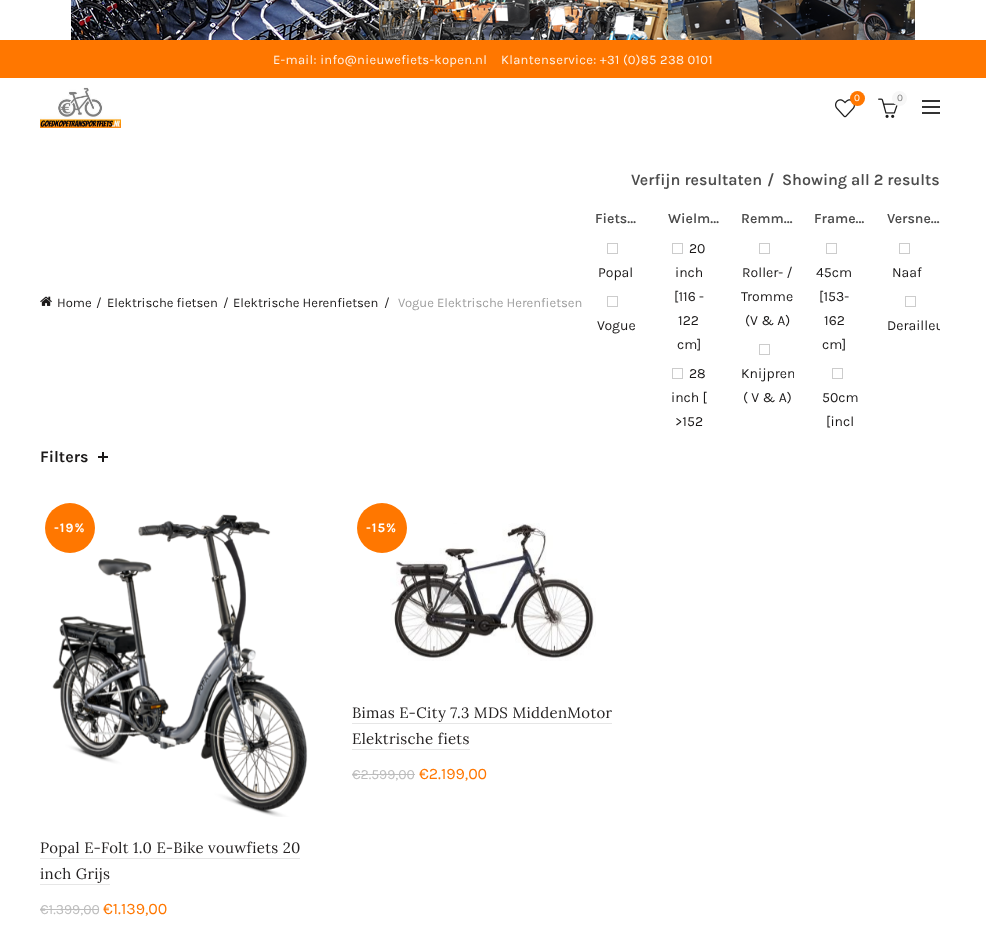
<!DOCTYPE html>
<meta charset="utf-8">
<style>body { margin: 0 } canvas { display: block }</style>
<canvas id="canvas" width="986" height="928"></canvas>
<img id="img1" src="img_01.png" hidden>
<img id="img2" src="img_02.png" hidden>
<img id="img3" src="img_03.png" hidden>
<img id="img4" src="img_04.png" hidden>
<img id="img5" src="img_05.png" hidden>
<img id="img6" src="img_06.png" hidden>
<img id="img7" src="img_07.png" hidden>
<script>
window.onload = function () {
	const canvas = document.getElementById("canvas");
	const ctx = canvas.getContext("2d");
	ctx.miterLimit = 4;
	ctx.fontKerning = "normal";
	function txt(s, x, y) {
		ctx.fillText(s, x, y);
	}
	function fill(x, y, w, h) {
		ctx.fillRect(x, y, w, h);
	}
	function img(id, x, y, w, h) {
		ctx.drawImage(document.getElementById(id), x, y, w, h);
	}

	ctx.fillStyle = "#FFFFFF";
	fill(0, 0, 986, 928);
	img("img1", 71, 0, 844, 40);
	ctx.fillStyle = "#FF7700";
	fill(0, 40, 986, 38);
	img("img2", 40, 87, 81, 41);
	img("img3", 835, 99, 20, 19);
	ctx.beginPath();
	ctx.arc(857.5, 98.5, 7.5, 0, Math.PI * 2);
	ctx.fill();
	img("img4", 878, 98, 20, 20);
	ctx.fillStyle = "#F7F7F7";
	ctx.beginPath();
	ctx.arc(899.5, 98.5, 7.5, 0, Math.PI * 2);
	ctx.fill();
	ctx.fillStyle = "#333333";
	fill(922, 106, 18, 2);
	fill(922, 100, 18, 2);
	fill(922, 112, 18, 2);
	img("img5", 40, 296, 12, 10);
	ctx.strokeStyle = "#CCCCCC";
	ctx.strokeRect(607.5, 243.5, 10, 10);
	ctx.strokeRect(607.5, 296.5, 10, 10);
	ctx.strokeRect(672.5, 243.5, 10, 10);
	ctx.strokeRect(672.5, 368.5, 10, 10);
	ctx.strokeRect(759.5, 243.5, 10, 10);
	ctx.strokeRect(759.5, 344.5, 10, 10);
	ctx.strokeRect(826.5, 243.5, 10, 10);
	ctx.strokeRect(832.5, 368.5, 10, 10);
	ctx.strokeRect(899.5, 243.5, 10, 10);
	ctx.strokeRect(905.5, 296.5, 10, 10);
	ctx.fillStyle = "#1B1919";
	fill(102, 452, 2, 10);
	fill(98, 456, 10, 2);
	img("img6", 52, 514, 256, 303);
	ctx.fillStyle = "#FF7700";
	ctx.beginPath();
	ctx.arc(70, 528, 25, 0, Math.PI * 2);
	ctx.fill();
	ctx.fillStyle = "#E6E6E6";
	fill(40, 858, 260, 1);
	fill(40, 884, 70, 1);
	ctx.fillStyle = "#BDBDBD";
	fill(40, 909, 59, 1);
	img("img7", 390, 523, 206, 138);
	ctx.fillStyle = "#FF7700";
	ctx.beginPath();
	ctx.arc(382, 528, 25, 0, Math.PI * 2);
	ctx.fill();
	ctx.fillStyle = "#E6E6E6";
	fill(352, 723, 260, 1);
	fill(352, 749, 118, 1);
	ctx.fillStyle = "#BDBDBD";
	fill(352, 774, 63, 1);
	ctx.letterSpacing = "0.3px";
	ctx.font = "13px Karla";
	ctx.fillStyle = "#FFF1E6";
	txt("E-mail: info@nieuwefiets-kopen.nl", 273, 64);
	txt("Klantenservice: +31 (0)85 238 0101", 501, 64);
	ctx.letterSpacing = "0px";
	ctx.font = "10px Karla";
	ctx.fillStyle = "#FFFFFF";
	txt("0", 854, 101);
	ctx.fillStyle = "#7E7E7E";
	txt("0", 897, 101);
	ctx.font = "13px Karla";
	ctx.fillStyle = "#1B1919";
	txt("Home", 57, 307);
	txt("/", 96, 307);
	txt("Elektrische fietsen", 107, 307);
	txt("/", 223, 307);
	txt("Elektrische Herenfietsen", 233, 307);
	txt("/", 384, 307);
	ctx.fillStyle = "#9E9E9E";
	txt("Vogue Elektrische Herenfietsen", 398, 307);
	ctx.font = "600 16px Karla";
	ctx.fillStyle = "#4C4C4C";
	txt("Verfijn resultaten", 631, 185);
	txt("/", 767, 185);
	txt("Showing all 2 results", 782, 185);
	ctx.font = "600 14px Karla";
	txt("Fiets…", 595, 223);
	ctx.font = "14px Karla";
	ctx.fillStyle = "#1B1919";
	txt("Popal", 598, 277);
	txt("Vogue", 597, 330);
	ctx.font = "600 14px Karla";
	ctx.fillStyle = "#4C4C4C";
	txt("Wielm…", 668, 223);
	ctx.font = "14px Karla";
	ctx.fillStyle = "#1B1919";
	txt("20", 689, 253);
	txt("inch", 675, 277);
	txt("[116 -", 674, 301);
	txt("122", 678, 325);
	txt("cm]", 677, 349);
	txt("28", 689, 378);
	txt("inch [", 671, 402);
	txt(">152", 675, 426);
	ctx.font = "600 14px Karla";
	ctx.fillStyle = "#4C4C4C";
	txt("Remm…", 741, 223);
	ctx.font = "14px Karla";
	ctx.fillStyle = "#1B1919";
	txt("Roller- /", 742, 277);
	txt("Tromme", 741, 301);
	txt("(V & A)", 745, 325);
	ctx.save();
	ctx.beginPath();
	ctx.rect(741, 237, 53, 178);
	ctx.clip();
	txt("Knijprem", 741, 378);
	ctx.restore();
	txt("( V & A)", 743, 402);
	ctx.font = "600 14px Karla";
	ctx.fillStyle = "#4C4C4C";
	txt("Frame…", 814, 223);
	ctx.font = "14px Karla";
	ctx.fillStyle = "#1B1919";
	txt("45cm", 816, 277);
	txt("[153-", 819, 301);
	txt("162", 824, 325);
	txt("cm]", 822, 349);
	txt("50cm", 822, 402);
	txt("[incl", 826, 426);
	ctx.font = "600 14px Karla";
	ctx.fillStyle = "#4C4C4C";
	txt("Versne…", 887, 223);
	ctx.font = "14px Karla";
	ctx.fillStyle = "#1B1919";
	txt("Naaf", 892, 277);
	ctx.save();
	ctx.beginPath();
	ctx.rect(887, 237, 53, 106);
	ctx.clip();
	txt("Derailleu", 887, 330);
	ctx.restore();
	ctx.font = "bold 16px Karla";
	txt("Filters", 40, 462);
	ctx.letterSpacing = "1px";
	ctx.font = "bold 13px Karla";
	ctx.fillStyle = "#FFFFFF";
	txt("-19%", 54, 532);
	ctx.letterSpacing = "0.3px";
	ctx.font = "15px Lora";
	ctx.fillStyle = "#252222";
	txt("Popal E-Folt 1.0 E-Bike vouwfiets 20", 40, 853);
	txt("inch Grijs", 40, 879);
	ctx.letterSpacing = "0px";
	ctx.font = "14px Karla";
	ctx.fillStyle = "#BDBDBD";
	txt("€1.399,00", 40, 914);
	ctx.font = "16px Karla";
	ctx.fillStyle = "#FF7700";
	txt("€1.139,00", 103, 914);
	ctx.letterSpacing = "1px";
	ctx.font = "bold 13px Karla";
	ctx.fillStyle = "#FFFFFF";
	txt("-15%", 366, 532);
	ctx.letterSpacing = "0.3px";
	ctx.font = "15px Lora";
	ctx.fillStyle = "#252222";
	txt("Bimas E-City 7.3 MDS MiddenMotor", 352, 718);
	txt("Elektrische fiets", 352, 744);
	ctx.letterSpacing = "0px";
	ctx.font = "14px Karla";
	ctx.fillStyle = "#BDBDBD";
	txt("€2.599,00", 352, 779);
	ctx.font = "16px Karla";
	ctx.fillStyle = "#FF7700";
	txt("€2.199,00", 419, 779);
};
</script>
